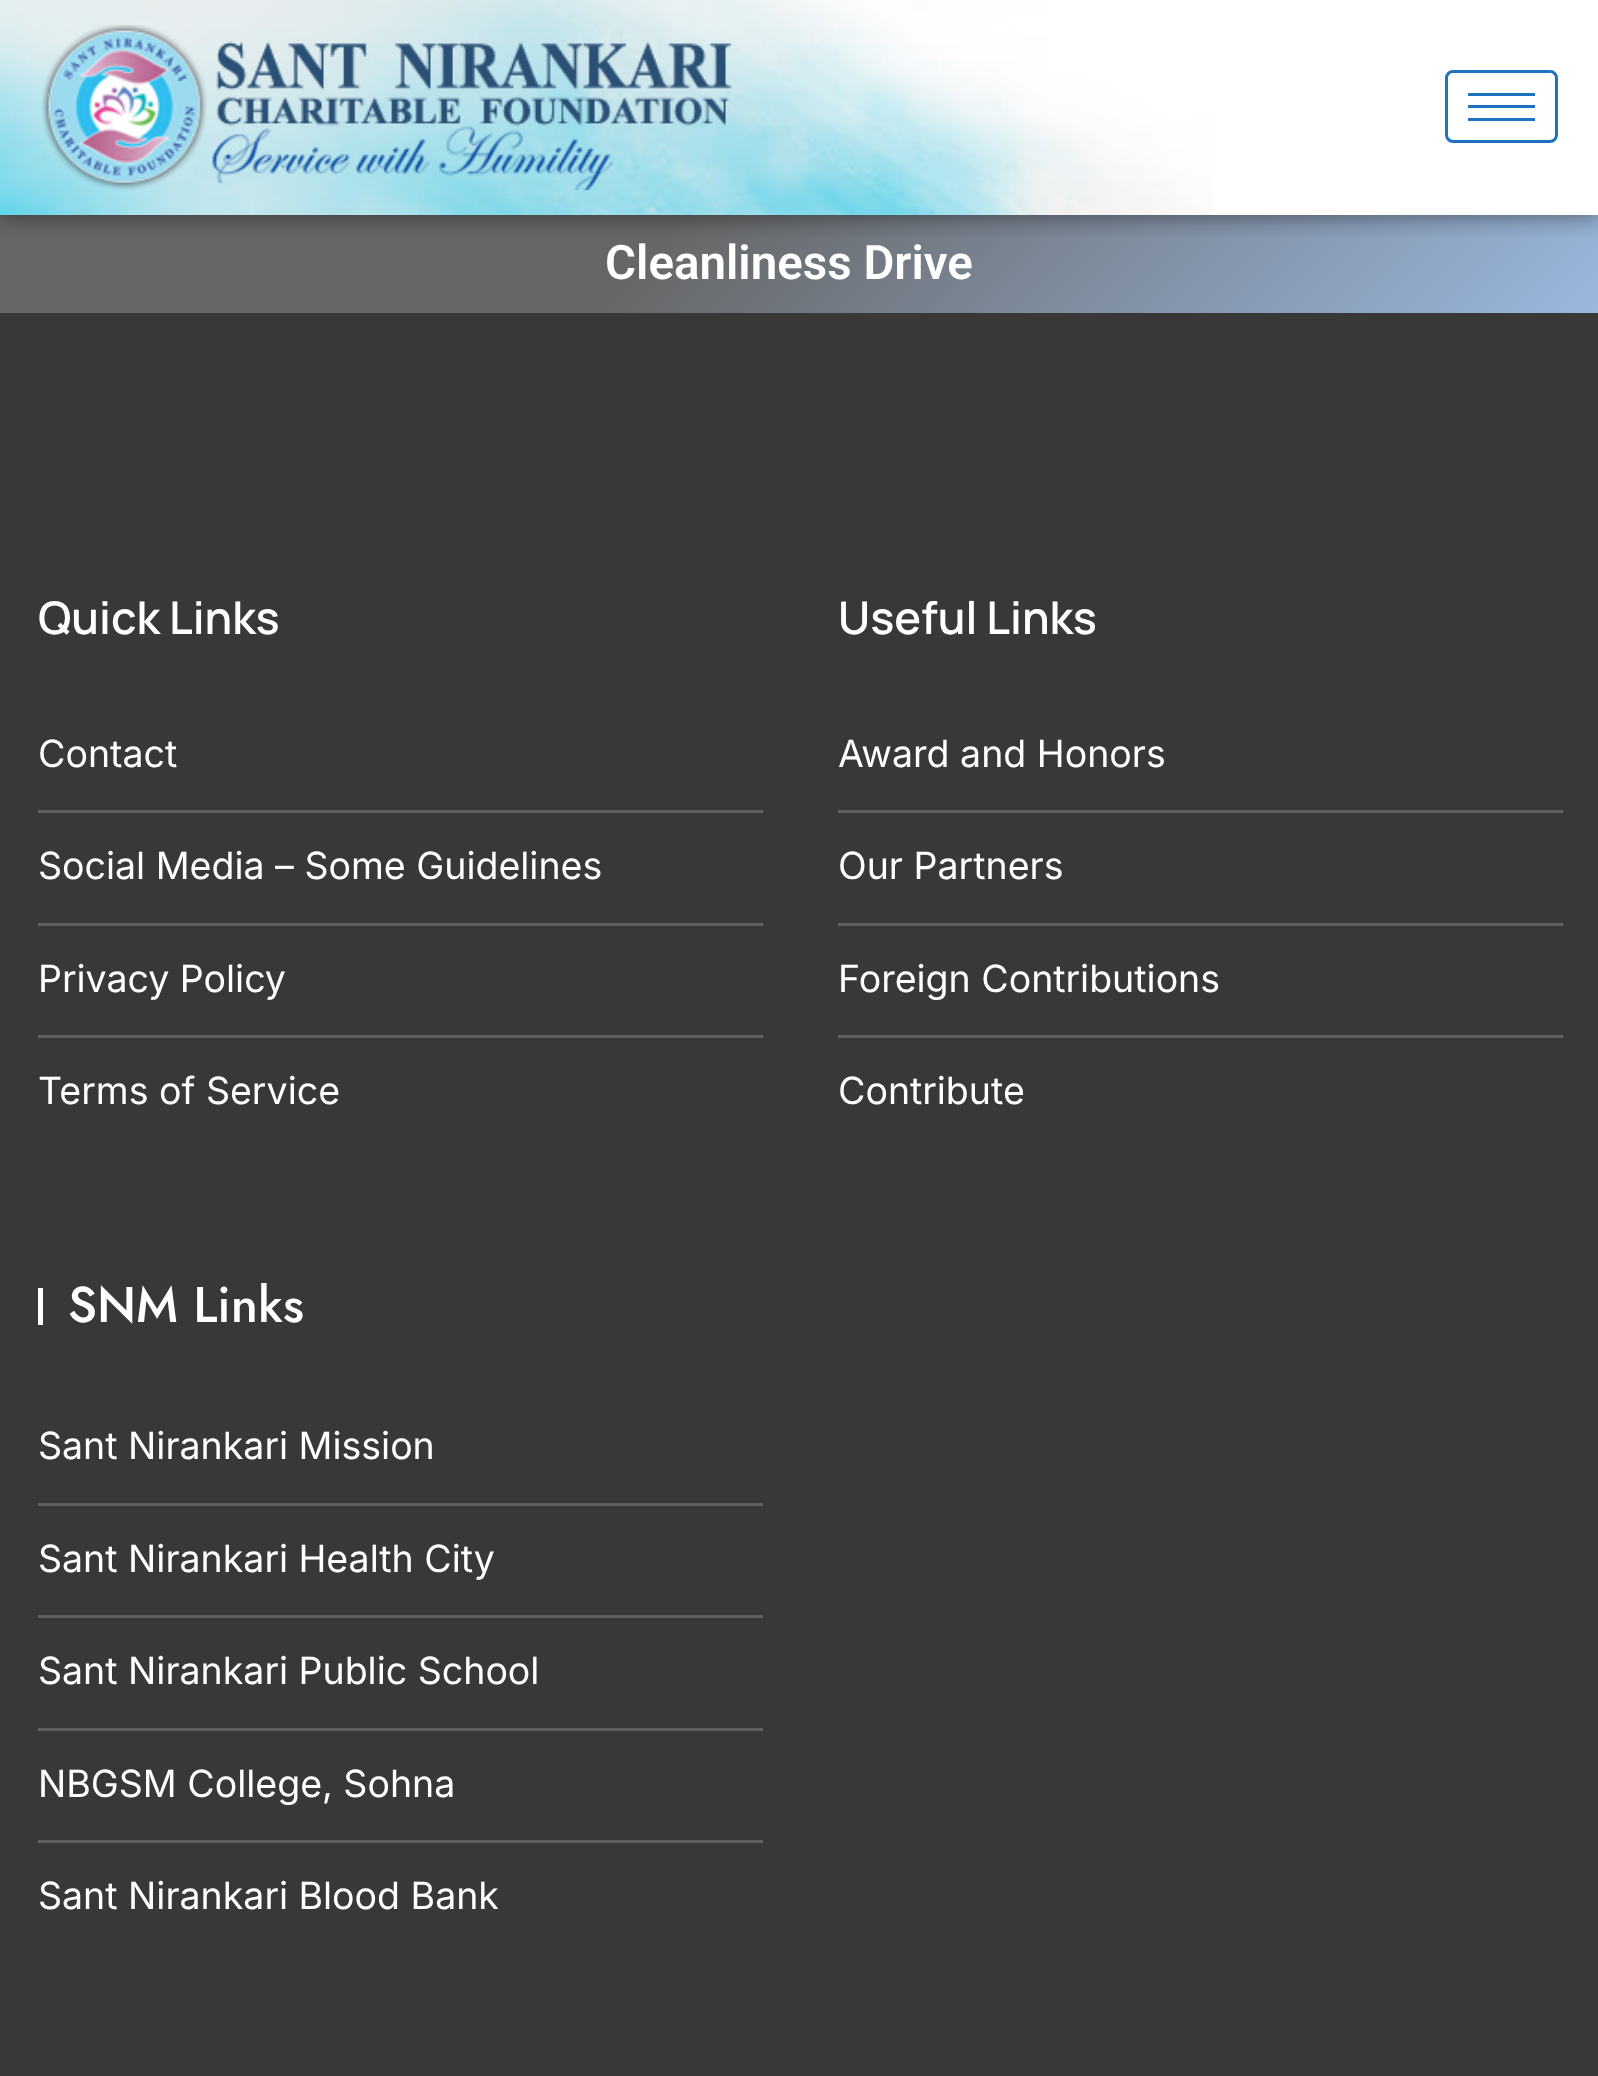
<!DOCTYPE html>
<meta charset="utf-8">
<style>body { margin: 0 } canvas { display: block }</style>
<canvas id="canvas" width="1598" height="2076"></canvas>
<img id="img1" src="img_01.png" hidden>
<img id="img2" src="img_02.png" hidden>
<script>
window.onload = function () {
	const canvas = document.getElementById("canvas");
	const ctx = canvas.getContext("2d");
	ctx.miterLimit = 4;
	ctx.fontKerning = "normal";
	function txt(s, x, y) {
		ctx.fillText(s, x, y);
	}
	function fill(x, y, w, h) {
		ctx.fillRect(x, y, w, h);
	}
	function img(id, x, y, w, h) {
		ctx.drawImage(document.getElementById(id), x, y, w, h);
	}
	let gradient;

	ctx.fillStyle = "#FFFFFF";
	fill(0, 0, 1598, 2076);
	gradient = ctx.createLinearGradient(376, -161, 1224, 688);
	gradient.addColorStop(0.4, "#666666");
	gradient.addColorStop(1, "#9AB8DF");
	ctx.fillStyle = gradient;
	fill(0, 215, 1598, 98);
	ctx.save();
	ctx.beginPath();
	ctx.rect(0, 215, 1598, 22);
	ctx.clip();
	ctx.fillStyle = "rgba(0, 0, 0, 0.5)";
	ctx.filter = "blur(12.5px)";
	ctx.beginPath();
	ctx.rect(0, 0, 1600, 215);
	ctx.fill();
	ctx.filter = "none";
	ctx.restore();
	img("img1", 0, 0, 1212, 215);
	img("img2", 42, 25, 690, 165);
	ctx.beginPath();
	ctx.roundRect(1446.5, 71.5, 110, 70, 6.5);
	ctx.strokeStyle = "#1E73BE";
	ctx.lineWidth = 3;
	ctx.stroke();
	ctx.fillStyle = "#1E73BE";
	fill(1468, 93, 67, 3);
	fill(1468, 105, 67, 3);
	fill(1468, 118, 67, 3);
	ctx.fillStyle = "#383838";
	fill(0, 313, 1598, 1763);
	ctx.fillStyle = "#606060";
	fill(38, 810, 725, 3);
	fill(38, 923, 725, 3);
	fill(38, 1035, 725, 3);
	fill(838, 810, 725, 3);
	fill(838, 923, 725, 3);
	fill(838, 1035, 725, 3);
	ctx.fillStyle = "#FFFFFF";
	fill(38, 1288, 5, 37);
	ctx.fillStyle = "#606060";
	fill(38, 1503, 725, 3);
	fill(38, 1615, 725, 3);
	fill(38, 1728, 725, 3);
	fill(38, 1840, 725, 3);
	ctx.font = "600 47.5px Roboto";
	ctx.fillStyle = "#FFFFFF";
	txt("Cleanliness Drive", 605, 279);
	ctx.font = "600 45px Manrope";
	txt("Quick Links", 38, 634);
	ctx.font = "37.5px Inter";
	txt("Contact", 38, 767);
	txt("Social Media – Some Guidelines", 38, 879);
	txt("Privacy Policy", 38, 992);
	txt("Terms of Service", 38, 1104);
	ctx.font = "600 45px Manrope";
	txt("Useful Links", 838, 634);
	ctx.font = "37.5px Inter";
	txt("Award and Honors", 838, 767);
	txt("Our Partners", 838, 879);
	txt("Foreign Contributions", 838, 992);
	txt("Contribute", 838, 1104);
	ctx.font = "500 50px Jost";
	txt("SNM Links", 68, 1322);
	ctx.font = "37.5px Inter";
	txt("Sant Nirankari Mission", 38, 1459);
	txt("Sant Nirankari Health City", 38, 1572);
	txt("Sant Nirankari Public School", 38, 1684);
	txt("NBGSM College, Sohna", 38, 1797);
	txt("Sant Nirankari Blood Bank", 38, 1909);
};
</script>
